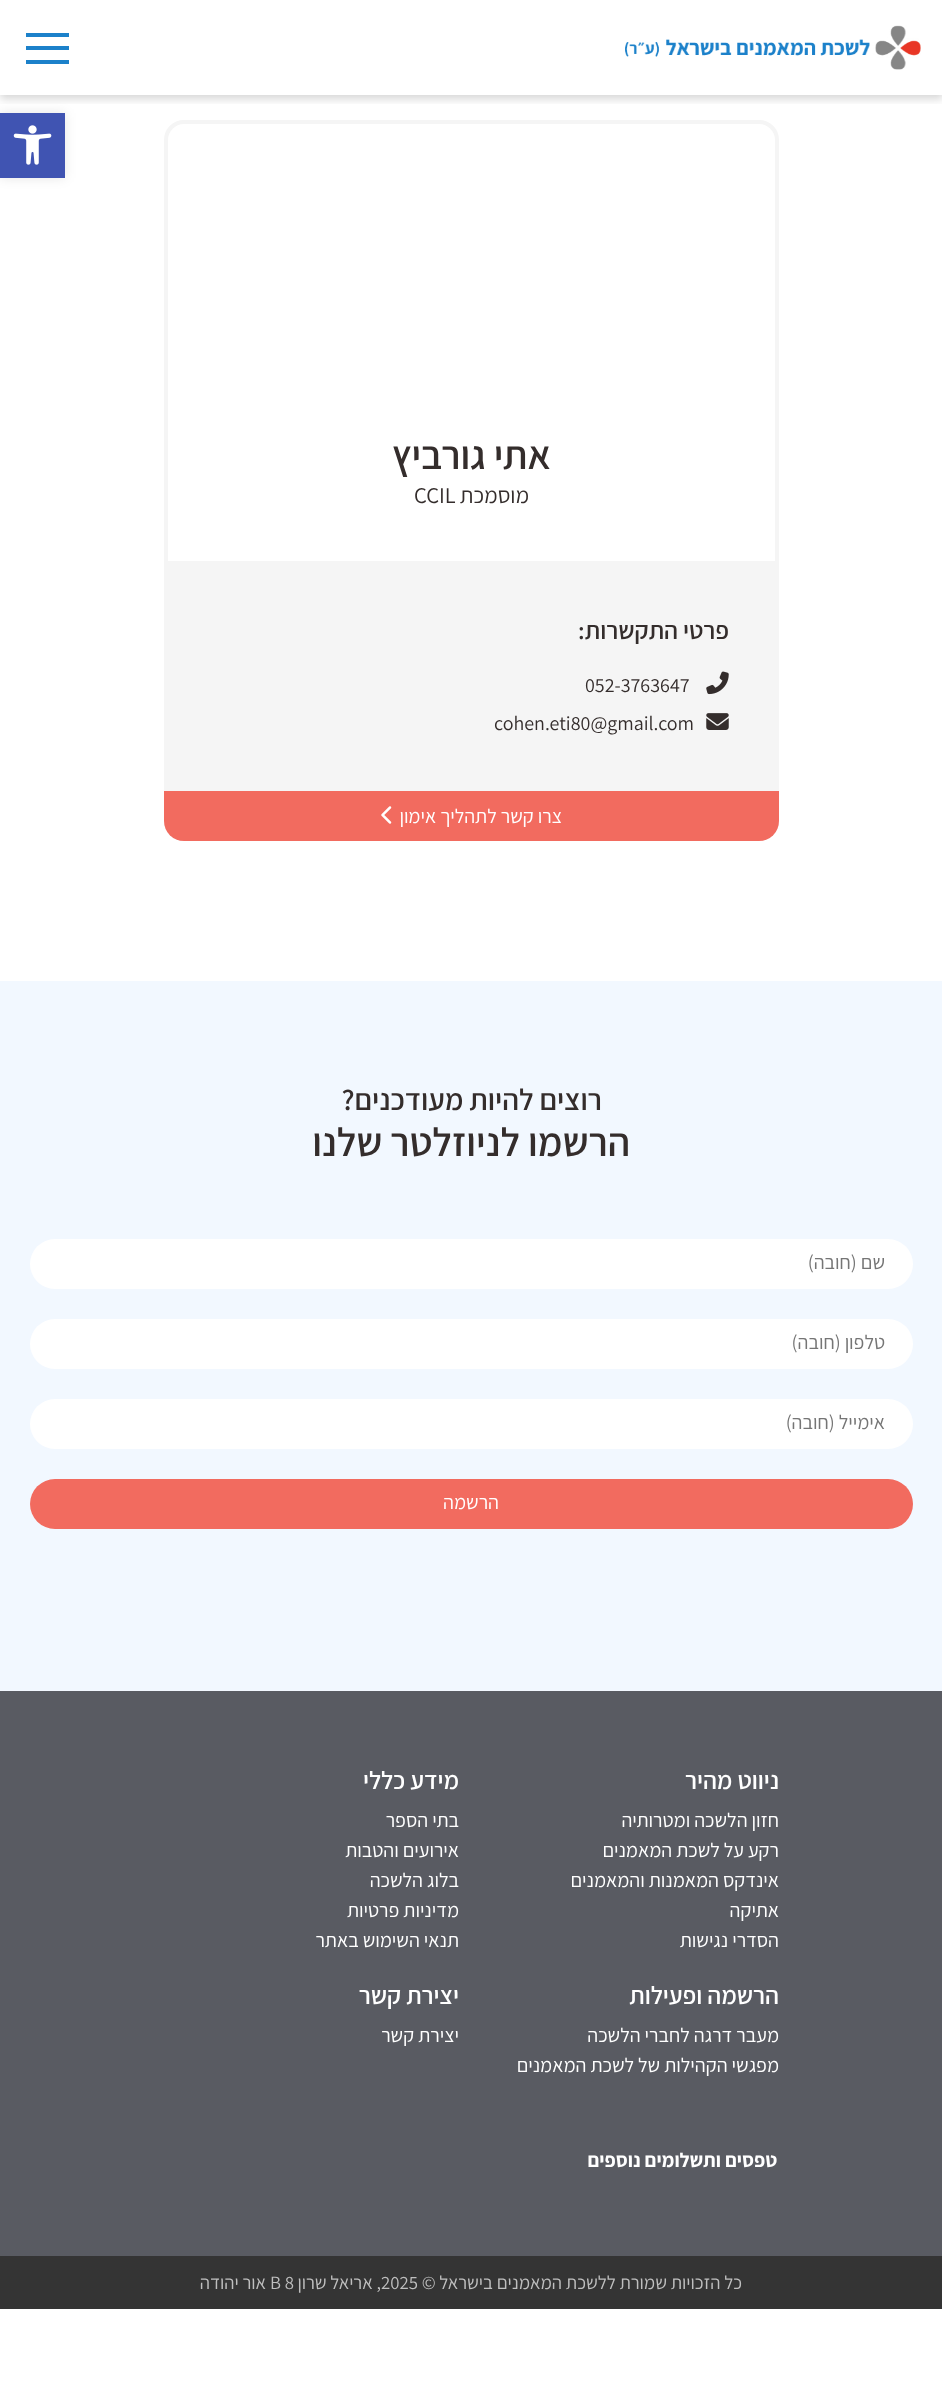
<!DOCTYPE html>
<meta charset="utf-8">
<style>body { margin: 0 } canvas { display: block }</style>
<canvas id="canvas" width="942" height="2397"></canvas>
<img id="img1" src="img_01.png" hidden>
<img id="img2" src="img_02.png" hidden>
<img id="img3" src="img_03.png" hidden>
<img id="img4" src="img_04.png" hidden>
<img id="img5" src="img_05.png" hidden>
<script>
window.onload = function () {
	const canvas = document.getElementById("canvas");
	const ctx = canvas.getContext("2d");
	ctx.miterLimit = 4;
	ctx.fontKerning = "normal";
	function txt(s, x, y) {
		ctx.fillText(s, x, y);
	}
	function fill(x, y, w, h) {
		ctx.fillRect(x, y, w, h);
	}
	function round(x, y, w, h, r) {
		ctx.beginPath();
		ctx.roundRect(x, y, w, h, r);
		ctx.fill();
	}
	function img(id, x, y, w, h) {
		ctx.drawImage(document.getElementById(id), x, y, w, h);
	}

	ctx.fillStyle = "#FFFFFF";
	fill(0, 0, 942, 2397);
	ctx.fillStyle = "rgba(0, 0, 0, 0.1)";
	ctx.filter = "blur(6px)";
	ctx.beginPath();
	ctx.rect(0, 113, 65, 65);
	ctx.fill();
	ctx.filter = "none";
	ctx.fillStyle = "#4054B2";
	fill(0, 113, 65, 65);
	img("img1", 13, 125, 39, 40);
	ctx.save();
	ctx.beginPath();
	ctx.rect(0, 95, 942, 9);
	ctx.clip();
	ctx.fillStyle = "rgba(0, 0, 0, 0.16)";
	ctx.filter = "blur(4px)";
	ctx.beginPath();
	ctx.rect(0, 4, 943, 95);
	ctx.fill();
	ctx.filter = "none";
	ctx.restore();
	img("img2", 625, 25, 296, 45);
	ctx.fillStyle = "#1C81CA";
	fill(26, 33, 43, 4);
	fill(26, 46, 43, 4);
	fill(26, 60, 43, 4);
	ctx.beginPath();
	ctx.roundRect(166, 122, 611, 441, [18, 18, 0, 0]);
	ctx.strokeStyle = "#F5F5F5";
	ctx.lineWidth = 4;
	ctx.stroke();
	ctx.fillStyle = "#F5F5F5";
	ctx.beginPath();
	ctx.roundRect(164, 565, 615, 276, [0, 0, 20, 20]);
	ctx.fill();
	img("img3", 706, 671, 23, 24);
	img("img4", 706, 713, 23, 17);
	ctx.fillStyle = "#F26B5F";
	ctx.beginPath();
	ctx.roundRect(164, 791, 615, 50, [0, 0, 20, 20]);
	ctx.fill();
	img("img5", 381, 806, 11, 18);
	ctx.fillStyle = "#F2F8FF";
	fill(0, 981, 942, 710);
	ctx.fillStyle = "#FFFFFF";
	round(30, 1239, 883, 50, 25);
	round(30, 1319, 883, 50, 25);
	round(30, 1399, 883, 50, 25);
	ctx.fillStyle = "#F26B5F";
	round(30, 1479, 883, 50, 25);
	ctx.fillStyle = "#595B62";
	fill(0, 1691, 942, 565);
	ctx.fillStyle = "#343434";
	fill(0, 2256, 942, 53);
	ctx.direction = "rtl";
	ctx.font = "600 40px Assistant";
	ctx.fillStyle = "#342D2C";
	txt("אתי גורביץ", 551, 469);
	ctx.font = "22.5px Assistant";
	txt("מוסמכת", 529, 503);
	ctx.direction = "ltr";
	txt("CCIL", 414, 503);
	ctx.direction = "rtl";
	ctx.font = "600 25px Assistant";
	txt("פרטי התקשרות:", 729, 639);
	ctx.direction = "ltr";
	ctx.font = "20px Assistant";
	txt("052-3763647", 585, 692);
	txt("cohen.eti80@gmail.com", 494, 730);
	ctx.direction = "rtl";
	ctx.fillStyle = "#FFFFFF";
	txt("צרו קשר לתהליך אימון", 562, 823);
	ctx.font = "600 30px Assistant";
	ctx.fillStyle = "#342D2C";
	txt("רוצים להיות מעודכנים?", 602, 1110);
	ctx.font = "600 40px Assistant";
	txt("הרשמו לניוזלטר שלנו", 630, 1156);
	ctx.font = "20px Assistant";
	ctx.fillStyle = "#757575";
	txt("שם (חובה)", 885, 1269);
	txt("טלפון (חובה)", 885, 1349);
	txt("אימייל (חובה)", 885, 1429);
	ctx.fillStyle = "#FFFFFF";
	txt("הרשמה", 499, 1509);
	ctx.font = "600 25px Assistant";
	txt("ניווט מהיר", 779, 1789);
	ctx.font = "20px Assistant";
	txt("חזון הלשכה ומטרותיה", 779, 1827);
	txt("רקע על לשכת המאמנים", 779, 1857);
	txt("אינדקס המאמנות והמאמנים", 779, 1887);
	txt("אתיקה", 779, 1917);
	txt("הסדרי נגישות", 779, 1947);
	ctx.font = "600 25px Assistant";
	txt("מידע כללי", 459, 1789);
	ctx.font = "20px Assistant";
	txt("בתי הספר", 459, 1827);
	txt("אירועים והטבות", 459, 1857);
	txt("בלוג הלשכה", 459, 1887);
	txt("מדיניות פרטיות", 459, 1917);
	txt("תנאי השימוש באתר", 459, 1947);
	ctx.font = "600 25px Assistant";
	txt("הרשמה ופעילות", 779, 2004);
	ctx.font = "20px Assistant";
	txt("מעבר דרגה לחברי הלשכה", 779, 2042);
	txt("מפגשי הקהילות של לשכת המאמנים", 779, 2072);
	ctx.font = "600 25px Assistant";
	txt("יצירת קשר", 459, 2004);
	ctx.font = "20px Assistant";
	txt("יצירת קשר", 459, 2042);
	ctx.font = "bold 20px Assistant";
	txt("טפסים ותשלומים נוספים", 777, 2167);
	ctx.font = "18.75px Assistant";
	ctx.fillStyle = "#BFBFBF";
	txt("כל הזכויות שמורת ללשכת המאמנים בישראל ©", 742, 2289);
	ctx.direction = "ltr";
	txt("2025", 381, 2289);
	ctx.direction = "rtl";
	txt(", אריאל שרון", 381, 2289);
	ctx.direction = "ltr";
	txt("B 8", 270, 2289);
	ctx.direction = "rtl";
	txt("אור יהודה", 266, 2289);
};
</script>
